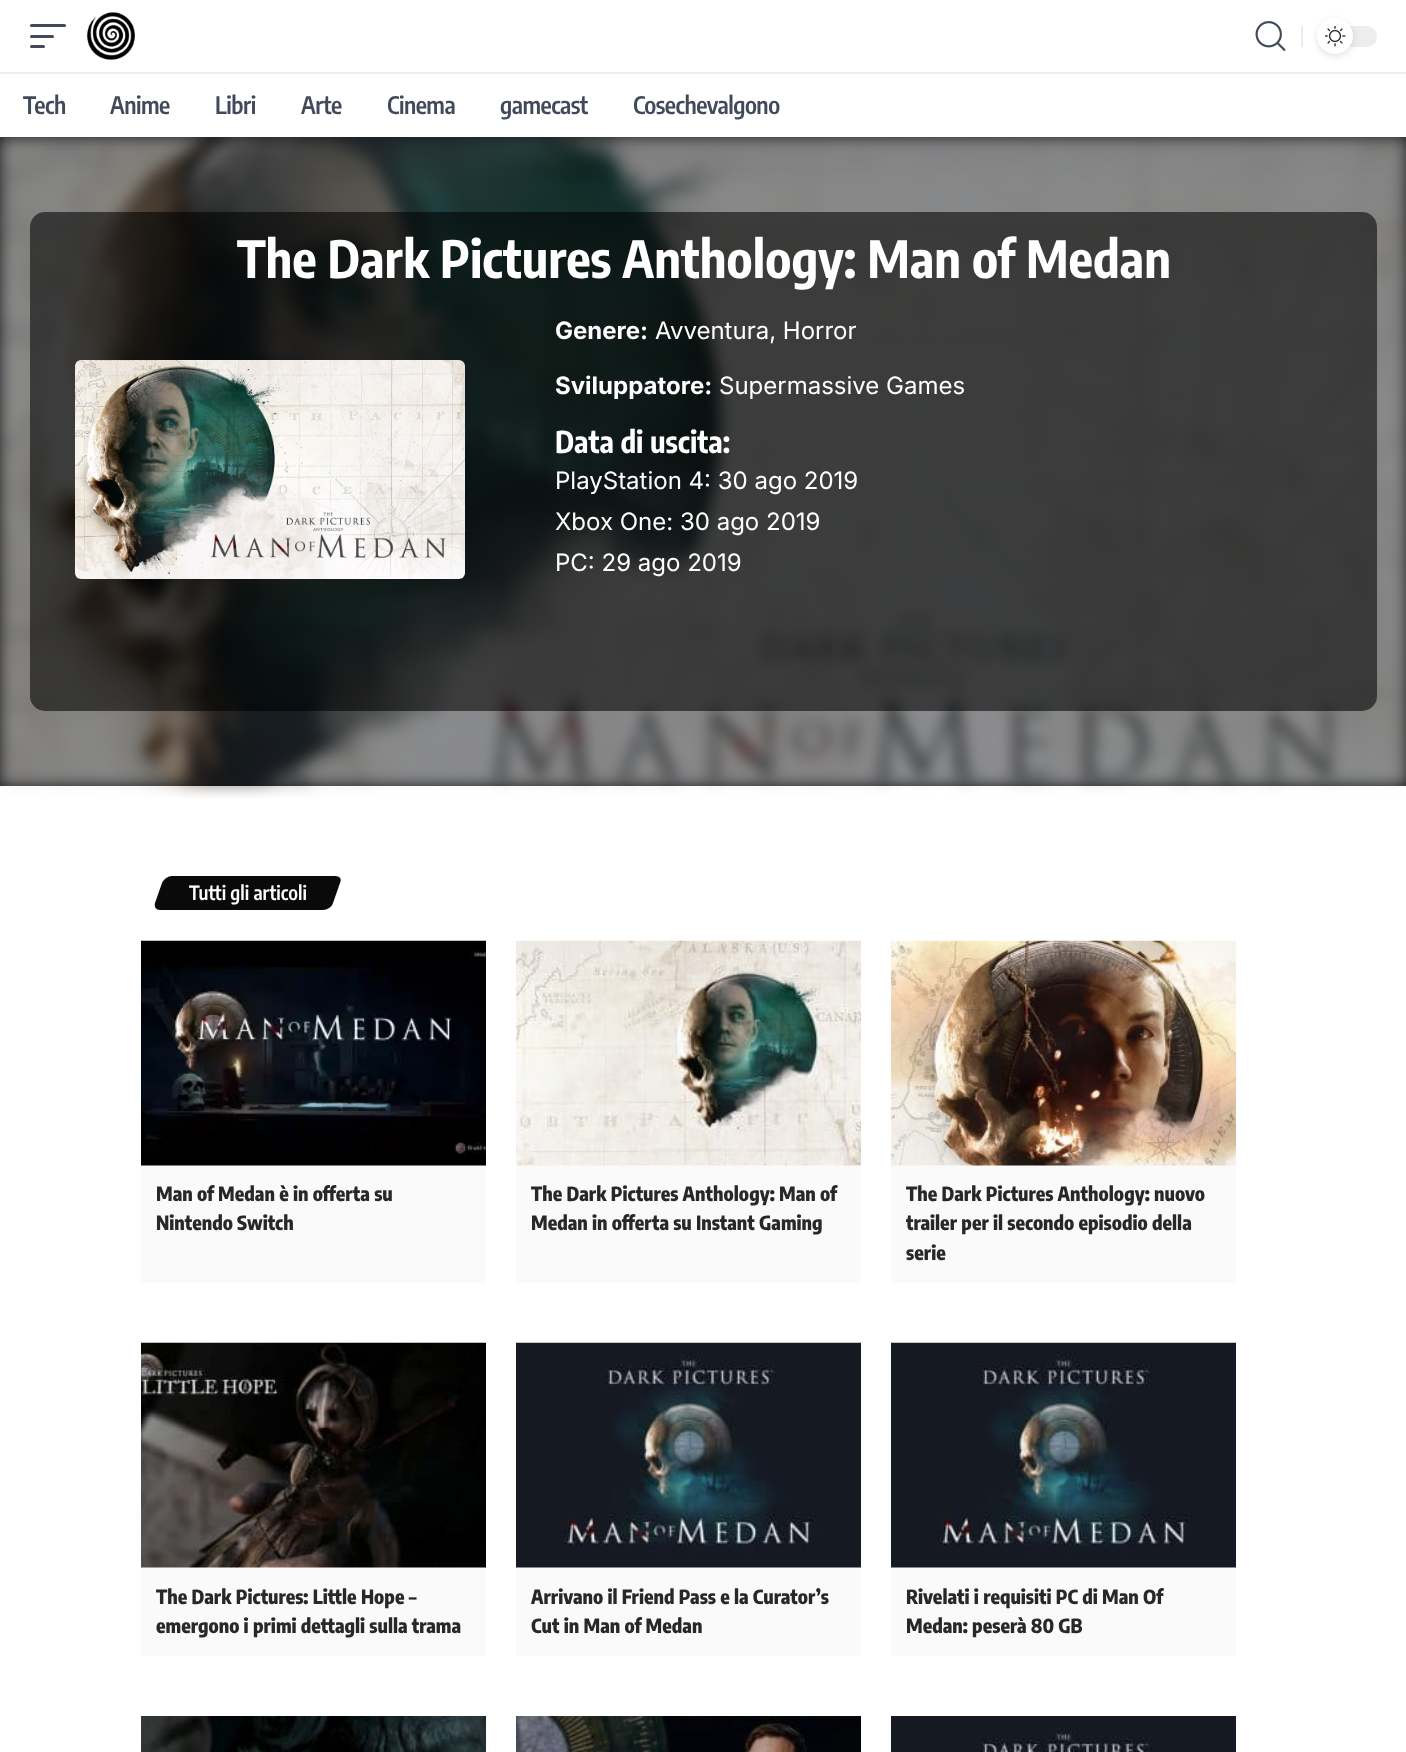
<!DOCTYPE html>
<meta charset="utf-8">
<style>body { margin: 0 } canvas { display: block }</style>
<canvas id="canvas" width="1406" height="1752"></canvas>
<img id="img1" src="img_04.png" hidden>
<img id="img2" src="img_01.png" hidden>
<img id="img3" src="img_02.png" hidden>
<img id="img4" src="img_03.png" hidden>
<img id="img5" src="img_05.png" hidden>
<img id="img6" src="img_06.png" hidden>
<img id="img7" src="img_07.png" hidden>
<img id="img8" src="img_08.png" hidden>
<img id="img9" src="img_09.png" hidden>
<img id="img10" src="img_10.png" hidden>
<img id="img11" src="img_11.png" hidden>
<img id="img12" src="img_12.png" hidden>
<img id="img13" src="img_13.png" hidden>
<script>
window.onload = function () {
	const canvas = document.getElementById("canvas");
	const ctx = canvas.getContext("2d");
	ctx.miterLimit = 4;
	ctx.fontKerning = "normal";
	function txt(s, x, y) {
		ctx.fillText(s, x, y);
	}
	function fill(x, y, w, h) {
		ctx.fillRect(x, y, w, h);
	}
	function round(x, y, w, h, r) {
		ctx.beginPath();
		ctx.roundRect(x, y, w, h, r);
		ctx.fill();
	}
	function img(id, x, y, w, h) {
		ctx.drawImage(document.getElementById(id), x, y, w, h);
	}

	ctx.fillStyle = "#FFFFFF";
	fill(0, 0, 1406, 1752);
	ctx.fillStyle = "#191C20";
	fill(0, 137, 1406, 649);
	img("img1", 0, 137, 1406, 661);
	ctx.fillStyle = "rgba(0, 0, 0, 0.07)";
	ctx.filter = "blur(22.5px)";
	ctx.beginPath();
	ctx.rect(0, 6, 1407, 137);
	ctx.fill();
	ctx.filter = "none";
	ctx.fillStyle = "#FFFFFF";
	fill(0, 0, 1406, 137);
	ctx.fillStyle = "#41495A";
	round(30, 24, 36, 3, 1.5);
	round(30, 35, 24, 3, 1.5);
	round(30, 45, 15, 3, 1.5);
	img("img2", 87, 12, 48, 48);
	img("img3", 1255, 21, 31, 30);
	ctx.fillStyle = "#ECEDEF";
	fill(1301, 26, 2, 21);
	ctx.fillStyle = "#EDEDED";
	round(1317, 26, 60, 21, 10.5);
	ctx.fillStyle = "rgba(0, 0, 0, 0.12)";
	ctx.filter = "blur(3px)";
	ctx.beginPath();
	ctx.roundRect(1317, 20, 36, 36, 18);
	ctx.fill();
	ctx.filter = "none";
	ctx.fillStyle = "#FFFFFF";
	ctx.beginPath();
	ctx.arc(1335, 36, 18, 0, Math.PI * 2);
	ctx.fill();
	img("img4", 1325, 26, 21, 21);
	ctx.fillStyle = "#ECEDEF";
	fill(0, 72, 1406, 2);
	ctx.fillStyle = "rgba(0, 0, 0, 0.56)";
	round(30, 212, 1347, 499, 15);
	img("img5", 75, 360, 390, 219);
	ctx.fillStyle = "#0A0A0A";
	ctx.beginPath();
	ctx.moveTo(172, 876);
	ctx.lineTo(335, 876);
	ctx.bezierCurveTo(340, 876, 342, 879, 340, 883);
	ctx.lineTo(333, 903);
	ctx.bezierCurveTo(332, 907, 327, 910, 323, 910);
	ctx.lineTo(160, 910);
	ctx.bezierCurveTo(156, 910, 154, 907, 155, 903);
	ctx.lineTo(162, 883);
	ctx.bezierCurveTo(164, 879, 168, 876, 172, 876);
	ctx.closePath();
	ctx.fill();
	ctx.fillStyle = "#FAFAFA";
	fill(141, 1165, 345, 118);
	img("img6", 141, 940, 345, 226);
	fill(516, 1165, 345, 118);
	img("img7", 516, 940, 345, 226);
	fill(891, 1165, 345, 118);
	img("img8", 891, 940, 345, 226);
	fill(141, 1567, 345, 89);
	img("img9", 141, 1342, 345, 226);
	fill(516, 1567, 345, 89);
	img("img10", 516, 1342, 345, 226);
	fill(891, 1567, 345, 89);
	img("img10", 891, 1342, 345, 226);
	img("img11", 141, 1716, 345, 36);
	img("img12", 516, 1716, 345, 36);
	img("img13", 891, 1716, 345, 36);
	ctx.letterSpacing = "-0.5px";
	ctx.font = "600 24px Encode Sans Condensed";
	ctx.fillStyle = "#41495A";
	txt("Tech", 23, 114);
	txt("Anime", 110, 114);
	txt("Libri", 215, 114);
	txt("Arte", 301, 114);
	txt("Cinema", 387, 114);
	txt("gamecast", 500, 114);
	txt("Cosechevalgono", 633, 114);
	ctx.letterSpacing = "0px";
	ctx.font = "bold 51px Encode Sans Condensed";
	ctx.fillStyle = "#FFFFFF";
	txt("The Dark Pictures Anthology: Man of Medan", 237, 278);
	ctx.font = "bold 24px Inter";
	txt("Genere:", 555, 339);
	ctx.font = "24px Inter";
	txt("Avventura, Horror", 655, 339);
	ctx.font = "bold 24px Inter";
	txt("Sviluppatore:", 555, 394);
	ctx.font = "24px Inter";
	txt("Supermassive Games", 719, 394);
	ctx.font = "bold 30px Encode Sans Condensed";
	txt("Data di uscita:", 555, 453);
	ctx.font = "24px Inter";
	txt("PlayStation 4: 30 ago 2019", 555, 489);
	txt("Xbox One: 30 ago 2019", 555, 530);
	txt("PC: 29 ago 2019", 555, 571);
	ctx.font = "600 19.5px Encode Sans Condensed";
	txt("Tutti gli articoli", 189, 900);
	ctx.font = "800 19.5px Encode Sans Condensed";
	ctx.fillStyle = "#282828";
	txt("Man of Medan è in offerta su", 156, 1201);
	txt("Nintendo Switch", 156, 1230);
	txt("The Dark Pictures Anthology: Man of", 531, 1201);
	txt("Medan in offerta su Instant Gaming", 531, 1230);
	txt("The Dark Pictures Anthology: nuovo", 906, 1201);
	txt("trailer per il secondo episodio della", 906, 1230);
	txt("serie", 906, 1260);
	txt("The Dark Pictures: Little Hope –", 156, 1604);
	txt("emergono i primi dettagli sulla trama", 156, 1633);
	txt("Arrivano il Friend Pass e la Curator’s", 531, 1604);
	txt("Cut in Man of Medan", 531, 1633);
	txt("Rivelati i requisiti PC di Man Of", 906, 1604);
	txt("Medan: peserà 80 GB", 906, 1633);
};
</script>
